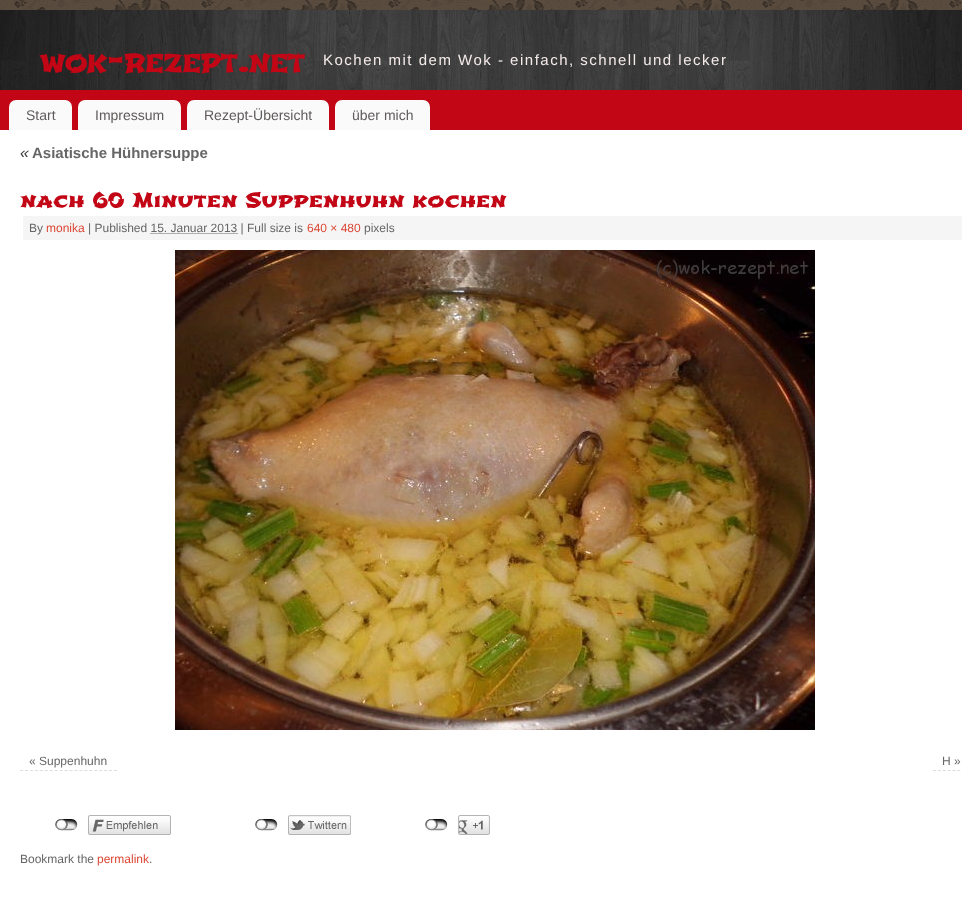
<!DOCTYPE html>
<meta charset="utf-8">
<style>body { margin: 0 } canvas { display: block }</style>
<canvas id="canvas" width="962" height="899"></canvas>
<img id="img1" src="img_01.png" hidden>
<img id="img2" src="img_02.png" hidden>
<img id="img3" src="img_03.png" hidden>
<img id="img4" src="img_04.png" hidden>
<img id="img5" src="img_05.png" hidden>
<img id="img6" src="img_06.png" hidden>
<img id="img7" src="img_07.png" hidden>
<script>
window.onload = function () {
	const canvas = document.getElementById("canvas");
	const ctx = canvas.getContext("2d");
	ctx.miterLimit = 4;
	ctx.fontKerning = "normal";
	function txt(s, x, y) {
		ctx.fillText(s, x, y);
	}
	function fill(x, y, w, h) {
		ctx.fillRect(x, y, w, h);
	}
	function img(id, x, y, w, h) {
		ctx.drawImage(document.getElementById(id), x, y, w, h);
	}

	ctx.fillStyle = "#FFFFFF";
	fill(0, 0, 962, 899);
	img("img1", 0, 0, 962, 10);
	ctx.fillStyle = "#C20615";
	fill(0, 90, 962, 40);
	img("img2", 0, 10, 962, 80);
	ctx.fillStyle = "#FAFAFA";
	ctx.beginPath();
	ctx.roundRect(9, 100, 63, 30, [7, 7, 0, 0]);
	ctx.fill();
	ctx.beginPath();
	ctx.roundRect(78, 100, 103, 30, [7, 7, 0, 0]);
	ctx.fill();
	ctx.beginPath();
	ctx.roundRect(187, 100, 142, 30, [7, 7, 0, 0]);
	ctx.fill();
	ctx.beginPath();
	ctx.roundRect(335, 100, 95, 30, [7, 7, 0, 0]);
	ctx.fill();
	ctx.fillStyle = "#DDDDDD";
	ctx.filter = "blur(0.5px)";
	ctx.beginPath();
	ctx.rect(21, 214, 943, 28);
	ctx.fill();
	ctx.filter = "none";
	ctx.fillStyle = "#F5F5F5";
	ctx.beginPath();
	ctx.rect(22, 215, 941, 26);
	ctx.fill();
	ctx.strokeStyle = "#FFFFFF";
	ctx.lineWidth = 2;
	ctx.stroke();
	ctx.beginPath();
	ctx.moveTo(150.5, 233.5);
	ctx.lineTo(237.5, 233.5);
	ctx.strokeStyle = "#666666";
	ctx.lineWidth = 1;
	ctx.setLineDash([1, 1]);
	ctx.stroke();
	img("img3", 175, 250, 640, 480);
	ctx.beginPath();
	ctx.moveTo(20, 770.5);
	ctx.lineTo(117, 770.5);
	ctx.strokeStyle = "#DDDDDD";
	ctx.setLineDash([3, 1.95]);
	ctx.stroke();
	ctx.beginPath();
	ctx.moveTo(933, 770.5);
	ctx.lineTo(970, 770.5);
	ctx.setLineDash([3, 1.86]);
	ctx.stroke();
	img("img4", 55, 819, 23, 12);
	img("img5", 88, 815, 83, 20);
	img("img4", 255, 819, 23, 12);
	img("img6", 288, 815, 63, 20);
	img("img4", 425, 819, 23, 12);
	img("img7", 458, 815, 32, 20);
	ctx.letterSpacing = "-0.75px";
	ctx.font = "25px Shojumaru";
	ctx.fillStyle = "#C20615";
	txt("WOK", 40, 72);
	ctx.font = "36px Shojumaru";
	txt("-", 107, 72);
	ctx.font = "25px Shojumaru";
	txt("REZEPT", 124, 72);
	ctx.font = "36px Shojumaru";
	txt(".", 238, 72);
	ctx.font = "25px Shojumaru";
	txt("NET", 248, 72);
	ctx.letterSpacing = "1.5px";
	ctx.font = "15px Liberation Sans";
	ctx.fillStyle = "#F6EBEB";
	txt("Kochen mit dem Wok - einfach, schnell und lecker", 323, 65);
	ctx.letterSpacing = "0px";
	ctx.font = "14px Liberation Sans";
	ctx.fillStyle = "#5F5B5B";
	txt("Start", 26, 120);
	txt("Impressum", 95, 120);
	txt("Rezept-Übersicht", 204, 120);
	txt("über mich", 352, 120);
	ctx.font = "italic 16px Liberation Sans";
	ctx.fillStyle = "#333333";
	txt("«", 20, 158);
	ctx.font = "bold 15px Liberation Sans";
	ctx.fillStyle = "#666666";
	txt("Asiatische Hühnersuppe", 32, 158);
	ctx.font = "20px Shojumaru";
	ctx.fillStyle = "#C20615";
	txt("nach 60 Minuten Suppenhuhn kochen", 20, 207);
	ctx.font = "12px Liberation Sans";
	ctx.fillStyle = "#666666";
	txt("By", 29, 232);
	ctx.fillStyle = "#DD4735";
	txt("monika", 46, 232);
	ctx.fillStyle = "#666666";
	txt("| Published 15. Januar 2013 | Full size is", 88, 232);
	ctx.fillStyle = "#DD4735";
	txt("640 × 480", 307, 232);
	ctx.fillStyle = "#666666";
	txt("pixels", 364, 232);
	txt("« Suppenhuhn", 29, 765);
	txt("H »", 942, 765);
	txt("Bookmark the", 20, 863);
	ctx.fillStyle = "#DD4735";
	txt("permalink", 97, 863);
	ctx.fillStyle = "#666666";
	txt(".", 149, 863);
};
</script>
